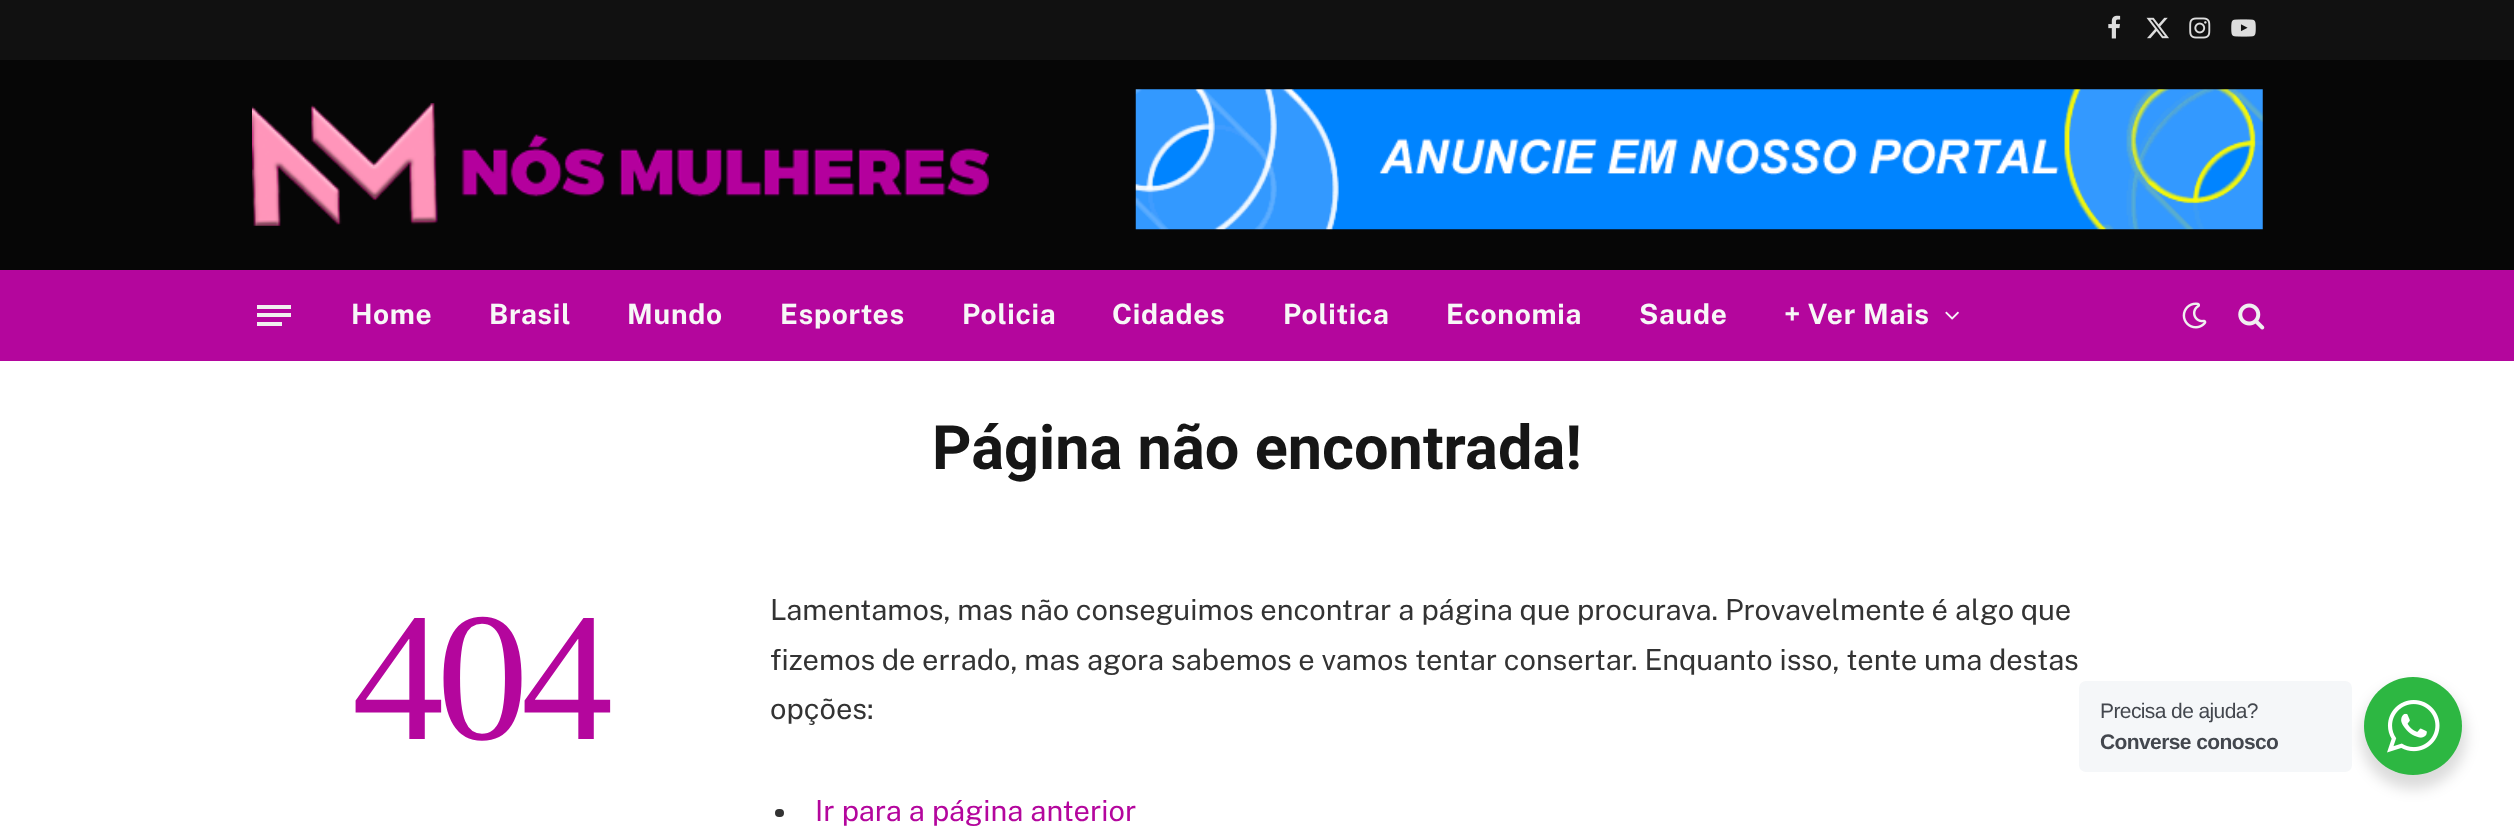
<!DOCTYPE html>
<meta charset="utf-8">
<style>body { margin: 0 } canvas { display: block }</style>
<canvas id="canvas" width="2514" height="827"></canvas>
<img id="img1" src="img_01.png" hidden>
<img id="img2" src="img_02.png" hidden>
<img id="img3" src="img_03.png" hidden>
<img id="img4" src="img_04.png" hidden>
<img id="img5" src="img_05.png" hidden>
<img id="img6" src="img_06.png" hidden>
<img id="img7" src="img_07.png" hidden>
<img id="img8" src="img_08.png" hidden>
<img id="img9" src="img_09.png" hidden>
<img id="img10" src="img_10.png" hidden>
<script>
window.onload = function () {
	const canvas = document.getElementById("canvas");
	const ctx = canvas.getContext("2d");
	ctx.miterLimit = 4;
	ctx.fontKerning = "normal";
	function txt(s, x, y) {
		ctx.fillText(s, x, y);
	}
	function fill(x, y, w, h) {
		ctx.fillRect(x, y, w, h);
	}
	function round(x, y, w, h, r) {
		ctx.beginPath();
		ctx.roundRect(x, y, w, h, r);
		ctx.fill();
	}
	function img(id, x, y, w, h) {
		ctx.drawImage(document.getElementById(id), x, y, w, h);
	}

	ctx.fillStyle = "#FFFFFF";
	fill(0, 0, 2514, 827);
	ctx.fillStyle = "#111111";
	fill(0, 0, 2514, 60);
	img("img1", 2108, 15, 13, 24);
	img("img2", 2146, 17, 23, 22);
	img("img3", 2189, 17, 22, 22);
	img("img4", 2231, 19, 25, 18);
	ctx.fillStyle = "#060606";
	fill(0, 60, 2514, 210);
	img("img5", 252, 103, 737, 123);
	img("img6", 1135, 89, 1128, 141);
	ctx.fillStyle = "#B4069D";
	fill(0, 270, 2514, 91);
	ctx.fillStyle = "#F0F0F0";
	fill(257, 322, 25, 4);
	fill(257, 305, 34, 4);
	fill(257, 313, 34, 4);
	img("img7", 1945, 311, 14, 9);
	img("img8", 2182, 302, 25, 27);
	img("img9", 2238, 303, 27, 27);
	ctx.fillStyle = "#333333";
	round(775, 809, 9, 8, 4);
	ctx.fillStyle = "rgba(0, 0, 0, 0.14)";
	ctx.filter = "blur(7px)";
	ctx.beginPath();
	ctx.roundRect(2361, 684, 105, 105, 52.5);
	ctx.fill();
	ctx.filter = "none";
	ctx.fillStyle = "#F5F7F9";
	round(2079, 681, 273, 91, 7);
	ctx.fillStyle = "#2DB742";
	ctx.beginPath();
	ctx.arc(2413, 726, 49, 0, Math.PI * 2);
	ctx.fill();
	img("img10", 2387, 700, 53, 53);
	ctx.letterSpacing = "0.75px";
	ctx.font = "100 28px 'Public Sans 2'";
	ctx.fillStyle = "#F7F7F7";
	txt("Home", 351, 324);
	txt("Brasil", 489, 324);
	txt("Mundo", 627, 324);
	txt("Esportes", 780, 324);
	txt("Policia", 962, 324);
	txt("Cidades", 1112, 324);
	txt("Politica", 1283, 324);
	txt("Economia", 1446, 324);
	txt("Saude", 1639, 324);
	txt("+ Ver Mais", 1784, 324);
	ctx.letterSpacing = "0px";
	ctx.font = "bold 61.25px Roboto";
	ctx.fillStyle = "#161616";
	txt("Página não encontrada!", 932, 469);
	ctx.letterSpacing = "-7.5px";
	ctx.font = "184px Liberation Serif";
	ctx.fillStyle = "#B4069D";
	txt("404", 352, 739);
	ctx.letterSpacing = "0px";
	ctx.font = "100 29.05px Public Sans";
	ctx.fillStyle = "#333333";
	txt("Lamentamos, mas não conseguimos encontrar a página que procurava. Provavelmente é algo que", 770, 620);
	txt("fizemos de errado, mas agora sabemos e vamos tentar consertar. Enquanto isso, tente uma destas", 770, 670);
	txt("opções:", 770, 719);
	ctx.fillStyle = "#B4069D";
	txt("Ir para a página anterior", 815, 821);
	ctx.letterSpacing = "-0.6px";
	ctx.font = "21px Liberation Sans";
	ctx.fillStyle = "#43474E";
	txt("Precisa de ajuda?", 2100, 718);
	ctx.font = "bold 21px Liberation Sans";
	txt("Converse conosco", 2100, 749);
};
</script>
